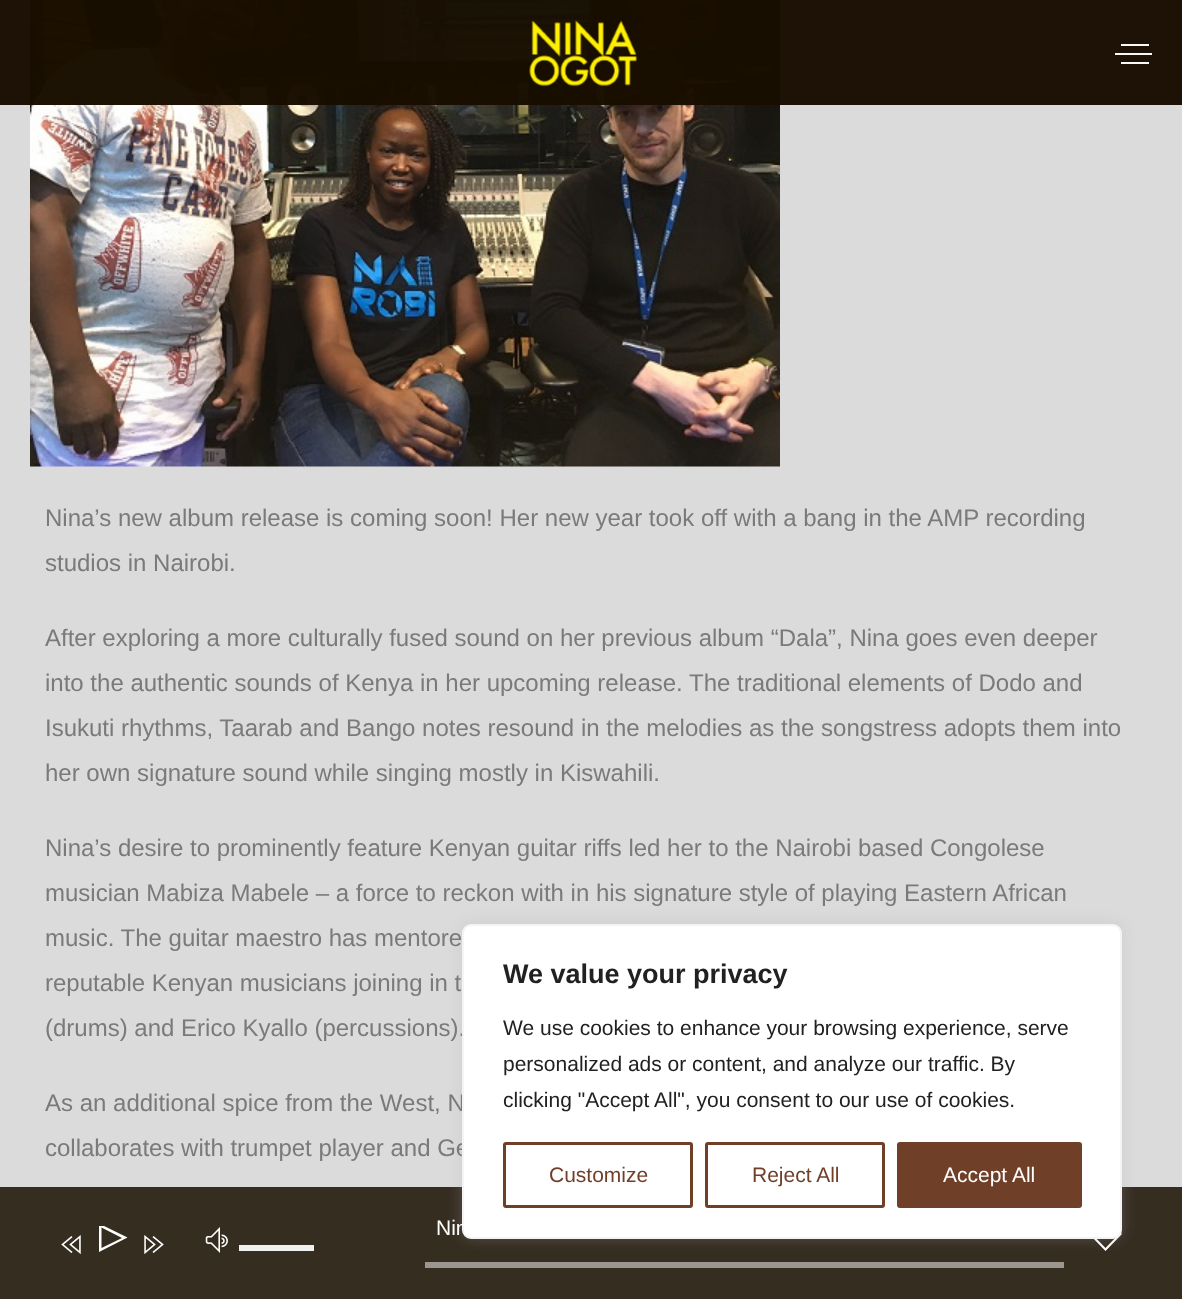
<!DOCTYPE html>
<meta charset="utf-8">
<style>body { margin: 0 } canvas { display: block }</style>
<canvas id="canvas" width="1182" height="1299"></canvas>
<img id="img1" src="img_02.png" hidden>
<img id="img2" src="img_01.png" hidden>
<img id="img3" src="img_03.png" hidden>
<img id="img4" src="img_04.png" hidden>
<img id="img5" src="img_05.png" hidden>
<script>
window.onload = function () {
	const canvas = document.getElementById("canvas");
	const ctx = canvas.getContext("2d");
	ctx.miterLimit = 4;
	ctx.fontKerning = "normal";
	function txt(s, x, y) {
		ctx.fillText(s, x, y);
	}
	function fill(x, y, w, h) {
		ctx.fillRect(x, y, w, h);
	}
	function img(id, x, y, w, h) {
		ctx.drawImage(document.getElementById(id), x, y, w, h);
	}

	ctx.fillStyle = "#DBDBDB";
	fill(0, 0, 1182, 1299);
	ctx.fillStyle = "#362D21";
	fill(0, 1187, 1182, 112);
	img("img1", 30, 0, 750, 467);
	ctx.fillStyle = "rgba(25, 14, 0, 0.85)";
	fill(0, 0, 1182, 105);
	fill(0, 0, 1182, 105);
	img("img2", 529, 20, 108, 67);
	ctx.fillStyle = "#F9F9F9";
	fill(1121, 44, 28, 2);
	fill(1115, 53, 37, 2);
	fill(1121, 62, 28, 2);
	ctx.fillStyle = "#FFFFFF";
	ctx.beginPath();
	ctx.moveTo(1122, 1234);
	ctx.lineTo(1105.5, 1251);
	ctx.lineTo(1089, 1234);
	ctx.lineTo(1090.5, 1232.5);
	ctx.lineTo(1105.5, 1248);
	ctx.lineTo(1120.5, 1232.5);
	ctx.closePath();
	ctx.fill();
	ctx.fillStyle = "rgba(172, 171, 171, 0.3)";
	ctx.filter = "blur(7.5px)";
	ctx.beginPath();
	ctx.roundRect(462, 923, 660, 315, 9);
	ctx.fill();
	ctx.filter = "none";
	img("img3", 61, 1235, 20, 19);
	ctx.save();
	ctx.beginPath();
	ctx.rect(92, 1226, 37, 37);
	ctx.clip();
	ctx.fillStyle = "#FFFFFF";
	ctx.beginPath();
	ctx.moveTo(99, 1223.5);
	ctx.lineTo(99, 1252);
	ctx.lineTo(127.5, 1237.5);
	ctx.closePath();
	ctx.moveTo(101.5, 1227.5);
	ctx.lineTo(122, 1238);
	ctx.lineTo(101.5, 1248);
	ctx.closePath();
	ctx.fill();
	ctx.restore();
	img("img4", 205, 1227, 23, 26);
	ctx.fillStyle = "#F0F0F0";
	fill(239, 1245, 75, 6);
	ctx.fillStyle = "#9B9690";
	fill(425, 1262, 639, 6);
	img("img5", 144, 1235, 20, 19);
	ctx.font = "24px Liberation Sans";
	ctx.fillStyle = "#7A7A7A";
	txt("Nina’s new album release is coming soon! Her new year took off with a bang in the AMP recording", 45, 526);
	txt("studios in Nairobi.", 45, 571);
	txt("After exploring a more culturally fused sound on her previous album “Dala”, Nina goes even deeper", 45, 646);
	txt("into the authentic sounds of Kenya in her upcoming release. The traditional elements of Dodo and", 45, 691);
	txt("Isukuti rhythms, Taarab and Bango notes resound in the melodies as the songstress adopts them into", 45, 736);
	txt("her own signature sound while singing mostly in Kiswahili.", 45, 781);
	txt("Nina’s desire to prominently feature Kenyan guitar riffs led her to the Nairobi based Congolese", 45, 856);
	txt("musician Mabiza Mabele – a force to reckon with in his signature style of playing Eastern African", 45, 901);
	txt("music. The guitar maestro has mentore", 45, 946);
	txt("reputable Kenyan musicians joining in t", 45, 991);
	txt("(drums) and Erico Kyallo (percussions).", 45, 1036);
	txt("As an additional spice from the West, N", 45, 1111);
	txt("collaborates with trumpet player and Ge", 45, 1156);
	ctx.fillStyle = "#FFFFFF";
	ctx.beginPath();
	ctx.roundRect(463, 925, 658, 313, 8);
	ctx.fill();
	ctx.strokeStyle = "#F4F4F4";
	ctx.lineWidth = 2;
	ctx.stroke();
	ctx.font = "bold 27px Liberation Sans";
	ctx.fillStyle = "#212121";
	txt("We value your privacy", 503, 983);
	ctx.font = "21px Liberation Sans";
	txt("We use cookies to enhance your browsing experience, serve", 503, 1035);
	txt("personalized ads or content, and analyze our traffic. By", 503, 1071);
	txt("clicking \"Accept All\", you consent to our use of cookies.", 503, 1107);
	ctx.beginPath();
	ctx.roundRect(504.5, 1143.5, 187, 63, 1.5);
	ctx.strokeStyle = "#703F28";
	ctx.lineWidth = 3;
	ctx.stroke();
	ctx.fillStyle = "#703F28";
	txt("Customize", 549, 1182);
	ctx.beginPath();
	ctx.roundRect(706.5, 1143.5, 177, 63, 1.5);
	ctx.stroke();
	txt("Reject All", 752, 1182);
	ctx.beginPath();
	ctx.roundRect(898.5, 1143.5, 182, 63, 1.5);
	ctx.fill();
	ctx.stroke();
	ctx.fillStyle = "#FFFFFF";
	txt("Accept All", 943, 1182);
	txt("Nin", 436, 1235);
};
</script>
